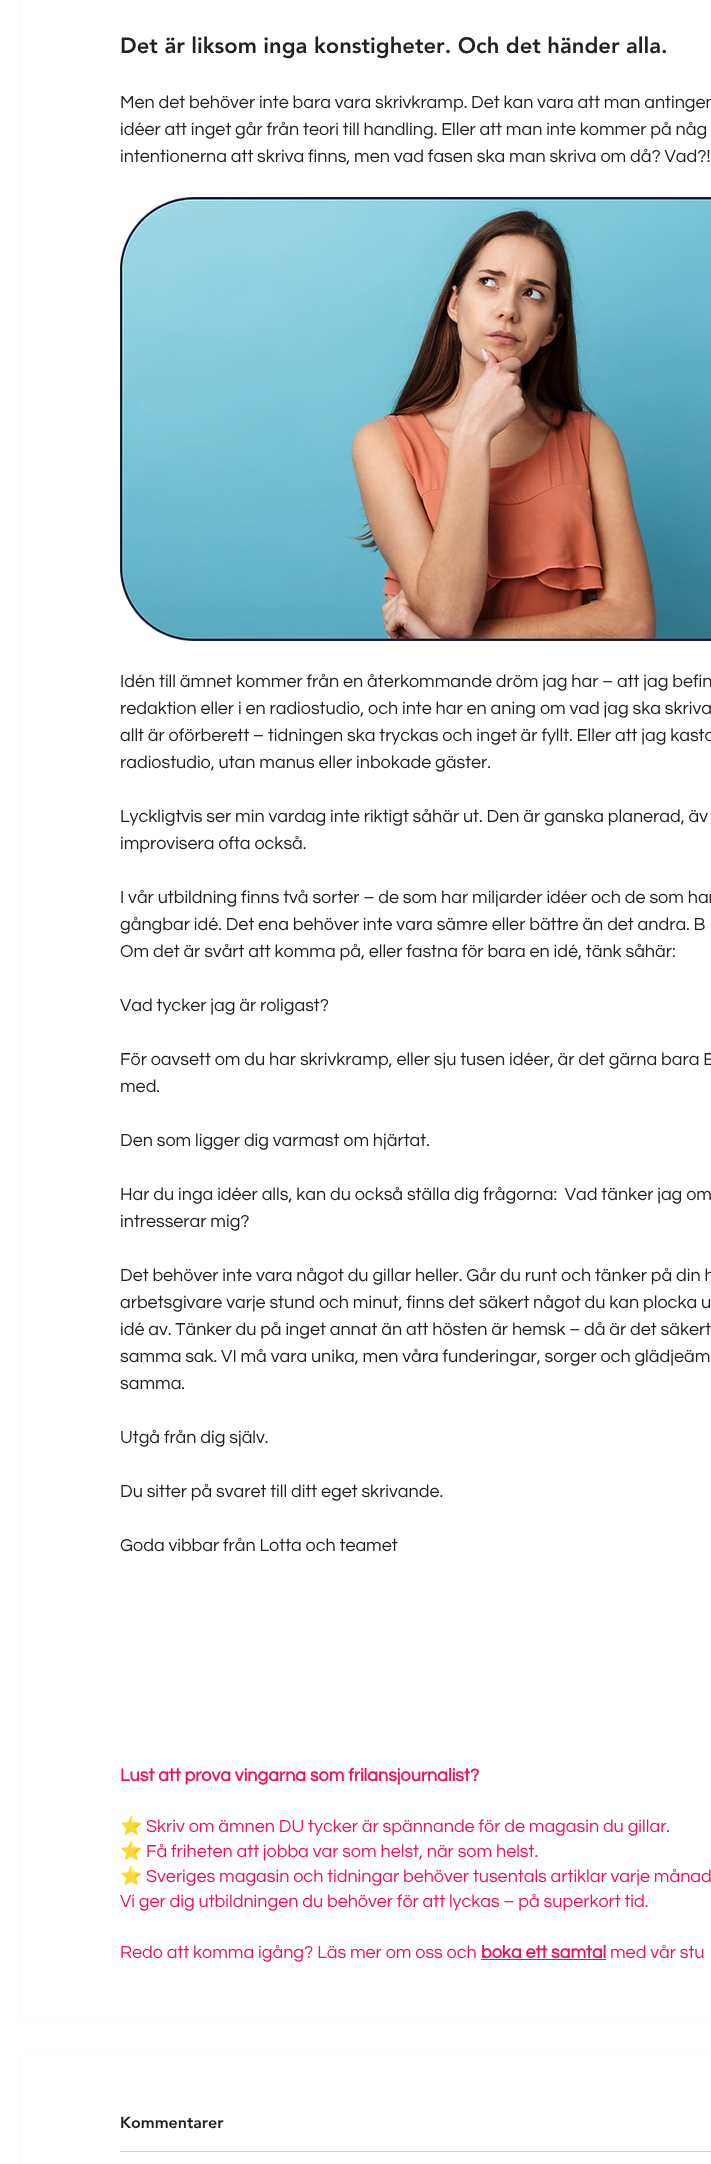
<!DOCTYPE html>
<meta charset="utf-8">
<style>body { margin: 0 } canvas { display: block }</style>
<canvas id="canvas" width="711" height="2164"></canvas>
<img id="img1" src="img_01.png" hidden>
<script>
window.onload = function () {
	const canvas = document.getElementById("canvas");
	const ctx = canvas.getContext("2d");
	ctx.miterLimit = 4;
	ctx.fontKerning = "none";
	function txt(s, x, y) {
		ctx.fillText(s, x, y);
	}
	function fill(x, y, w, h) {
		ctx.fillRect(x, y, w, h);
	}
	function img(id, x, y, w, h) {
		ctx.drawImage(document.getElementById(id), x, y, w, h);
	}

	ctx.fillStyle = "#FFFFFF";
	fill(0, 0, 711, 2164);
	ctx.strokeStyle = "#FBFBFB";
	ctx.strokeRect(20.5, -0.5, 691, 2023);
	img("img1", 120, 197, 591, 444);
	ctx.fillStyle = "#EC1260";
	fill(481, 1959, 125, 1);
	ctx.strokeRect(20.5, 2053.5, 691, 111);
	ctx.fillStyle = "#D3D3D3";
	fill(120, 2151, 591, 1);
	ctx.font = "900 22px 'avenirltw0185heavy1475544'";
	ctx.fillStyle = "#212121";
	txt("Det är liksom inga konstigheter. Och det händer alla.", 120, 53);
	ctx.font = "18px Questrial";
	txt("Men det behöver inte bara vara skrivkramp. Det kan vara att man antingen", 120, 108);
	txt("idéer att inget går från teori till handling. Eller att man inte kommer på någ", 120, 135);
	txt("intentionerna att skriva finns, men vad fasen ska man skriva om då? Vad?!", 120, 162);
	txt("Idén till ämnet kommer från en återkommande dröm jag har – att jag befin", 120, 687);
	txt("redaktion eller i en radiostudio, och inte har en aning om vad jag ska skriva", 120, 714);
	txt("allt är oförberett – tidningen ska tryckas och inget är fyllt. Eller att jag kasta", 120, 741);
	txt("radiostudio, utan manus eller inbokade gäster.", 120, 768);
	txt("Lyckligtvis ser min vardag inte riktigt såhär ut. Den är ganska planerad, äv", 120, 822);
	txt("improvisera ofta också.", 120, 849);
	txt("I vår utbildning finns två sorter – de som har miljarder idéer och de som har", 120, 903);
	txt("gångbar idé. Det ena behöver inte vara sämre eller bättre än det andra. B", 120, 930);
	txt("Om det är svårt att komma på, eller fastna för bara en idé, tänk såhär:", 120, 957);
	txt("Vad tycker jag är roligast?", 120, 1011);
	txt("För oavsett om du har skrivkramp, eller sju tusen idéer, är det gärna bara E", 120, 1065);
	txt("med.", 120, 1092);
	txt("Den som ligger dig varmast om hjärtat.", 120, 1146);
	txt("Har du inga idéer alls, kan du också ställa dig frågorna:  Vad tänker jag om", 120, 1200);
	txt("intresserar mig?", 120, 1227);
	txt("Det behöver inte vara något du gillar heller. Går du runt och tänker på din h", 120, 1281);
	txt("arbetsgivare varje stund och minut, finns det säkert något du kan plocka u", 120, 1308);
	txt("idé av. Tänker du på inget annat än att hösten är hemsk – då är det säkert", 120, 1335);
	txt("samma sak. VI må vara unika, men våra funderingar, sorger och glädjeäm", 120, 1362);
	txt("samma.", 120, 1389);
	txt("Utgå från dig själv.", 120, 1443);
	txt("Du sitter på svaret till ditt eget skrivande.", 120, 1497);
	txt("Goda vibbar från Lotta och teamet", 120, 1551);
	ctx.font = "bold 18px Questrial";
	ctx.fillStyle = "#EC1260";
	txt("Lust att prova vingarna som frilansjournalist?", 120, 1781);
	ctx.font = "18px Noto Color Emoji";
	txt("⭐", 120, 1832);
	ctx.font = "18px Questrial";
	txt("Skriv om ämnen DU tycker är spännande för de magasin du gillar.", 146, 1832);
	ctx.font = "18px Noto Color Emoji";
	txt("⭐", 120, 1857);
	ctx.font = "18px Questrial";
	txt("Få friheten att jobba var som helst, när som helst.", 146, 1857);
	ctx.font = "18px Noto Color Emoji";
	txt("⭐", 120, 1882);
	ctx.font = "18px Questrial";
	txt("Sveriges magasin och tidningar behöver tusentals artiklar varje månad", 146, 1882);
	txt("Vi ger dig utbildningen du behöver för att lyckas – på superkort tid.", 120, 1907);
	txt("Redo att komma igång? Läs mer om oss och", 120, 1958);
	ctx.font = "bold 18px Questrial";
	txt("boka ett samtal", 481, 1958);
	ctx.font = "18px Questrial";
	txt("med vår stu", 610, 1958);
	ctx.font = "900 16px 'avenirltw0185heavy1475544'";
	ctx.fillStyle = "#212121";
	txt("Kommentarer", 120, 2128);
};
</script>
